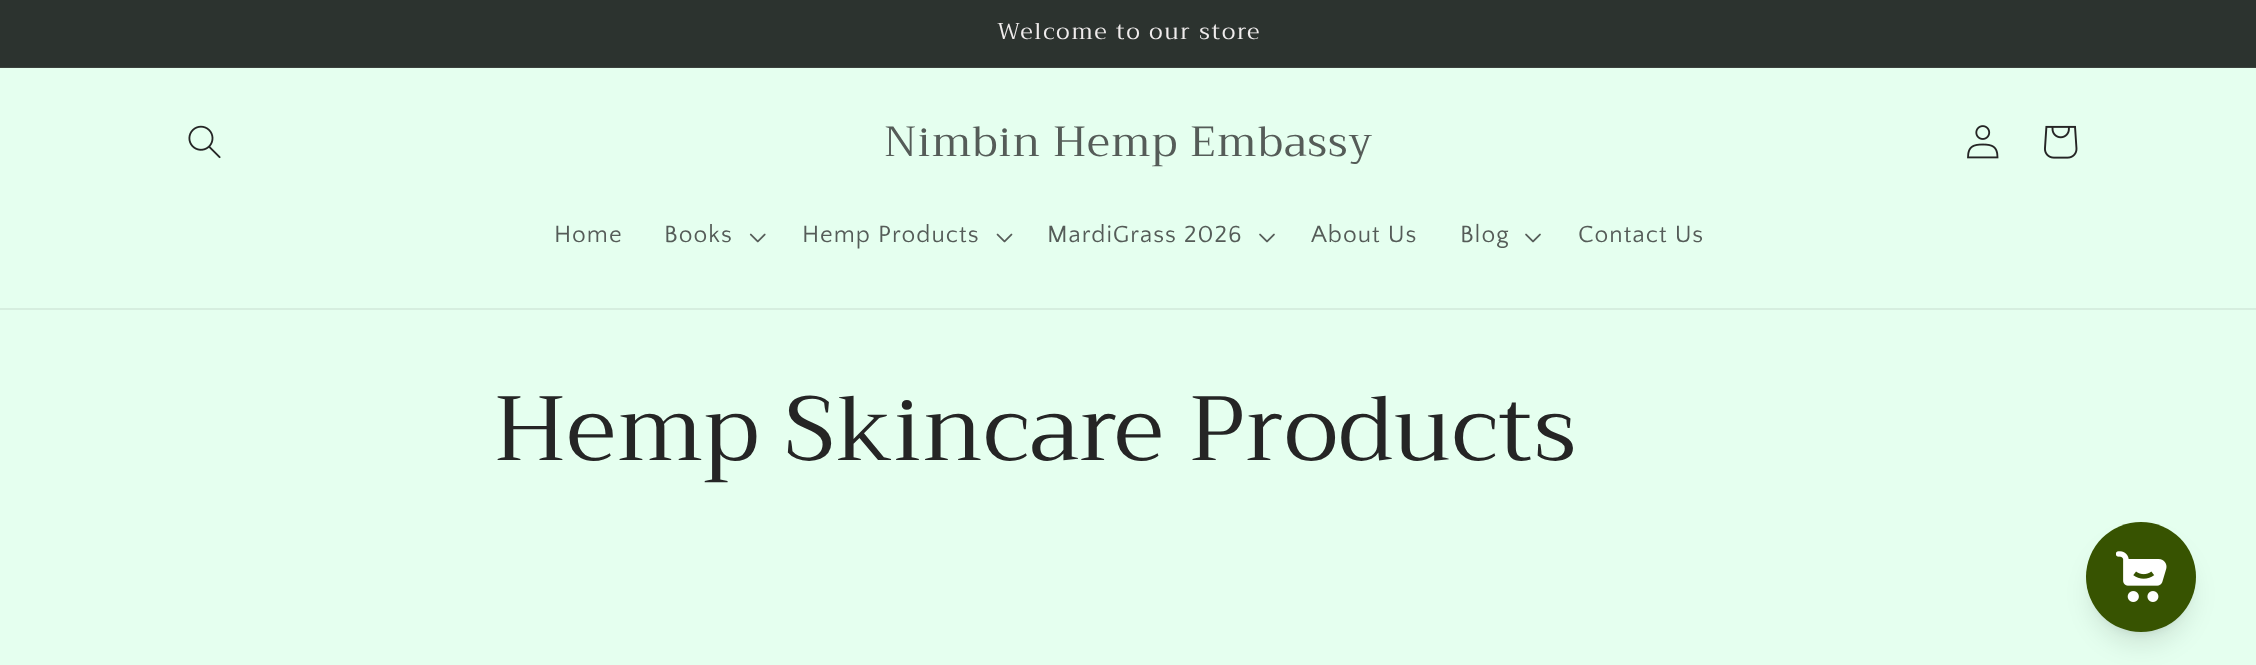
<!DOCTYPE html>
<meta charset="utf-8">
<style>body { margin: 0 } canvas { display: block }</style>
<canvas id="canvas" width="2256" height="665"></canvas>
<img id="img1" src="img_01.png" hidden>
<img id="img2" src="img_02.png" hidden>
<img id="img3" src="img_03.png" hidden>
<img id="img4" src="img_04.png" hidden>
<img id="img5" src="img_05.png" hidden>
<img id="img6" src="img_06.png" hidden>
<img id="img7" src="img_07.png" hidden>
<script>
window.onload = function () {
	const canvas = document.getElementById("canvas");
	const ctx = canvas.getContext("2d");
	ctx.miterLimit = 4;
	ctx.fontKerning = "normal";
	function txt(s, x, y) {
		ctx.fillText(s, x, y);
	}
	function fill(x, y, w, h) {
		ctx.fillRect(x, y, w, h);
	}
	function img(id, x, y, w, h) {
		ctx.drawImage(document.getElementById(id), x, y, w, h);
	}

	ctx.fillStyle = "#E5FFEF";
	fill(0, 0, 2256, 665);
	ctx.fillStyle = "#2C332F";
	fill(0, 0, 2256, 67);
	ctx.fillStyle = "#3C423E";
	fill(0, 67, 2256, 1);
	ctx.fillStyle = "#D6EEDF";
	fill(0, 308, 2256, 2);
	img("img1", 188, 125, 33, 34);
	img("img2", 1967, 125, 32, 34);
	img("img3", 2044, 125, 34, 34);
	img("img4", 749, 233, 17, 10);
	img("img5", 996, 233, 17, 10);
	img("img6", 1259, 233, 16, 10);
	img("img6", 1525, 233, 16, 10);
	ctx.fillStyle = "rgba(0, 0, 0, 0.1)";
	ctx.filter = "blur(5px)";
	ctx.beginPath();
	ctx.roundRect(2093, 536, 96, 96, 48);
	ctx.fill();
	ctx.filter = "none";
	ctx.filter = "blur(13px)";
	ctx.beginPath();
	ctx.roundRect(2091, 544, 100, 100, 50);
	ctx.fill();
	ctx.filter = "none";
	ctx.fillStyle = "#375301";
	ctx.beginPath();
	ctx.arc(2141, 577, 55, 0, Math.PI * 2);
	ctx.fill();
	img("img7", 2116, 551, 51, 51);
	ctx.letterSpacing = "1.75px";
	ctx.font = "22.75px Trirong";
	ctx.fillStyle = "#EFECEC";
	txt("Welcome to our store", 997, 39);
	ctx.letterSpacing = "1.05px";
	ctx.font = "42px Trirong";
	ctx.fillStyle = "#555C58";
	txt("Nimbin Hemp Embassy", 884, 156);
	ctx.font = "24.5px Quattrocento Sans";
	txt("Home", 554, 242);
	txt("Books", 664, 242);
	txt("Hemp Products", 802, 242);
	txt("MardiGrass 2026", 1047, 242);
	txt("About Us", 1311, 242);
	txt("Blog", 1460, 242);
	txt("Contact Us", 1578, 242);
	ctx.font = "91px Trirong";
	ctx.fillStyle = "#252525";
	txt("Hemp Skincare Products", 494, 460);
};
</script>
